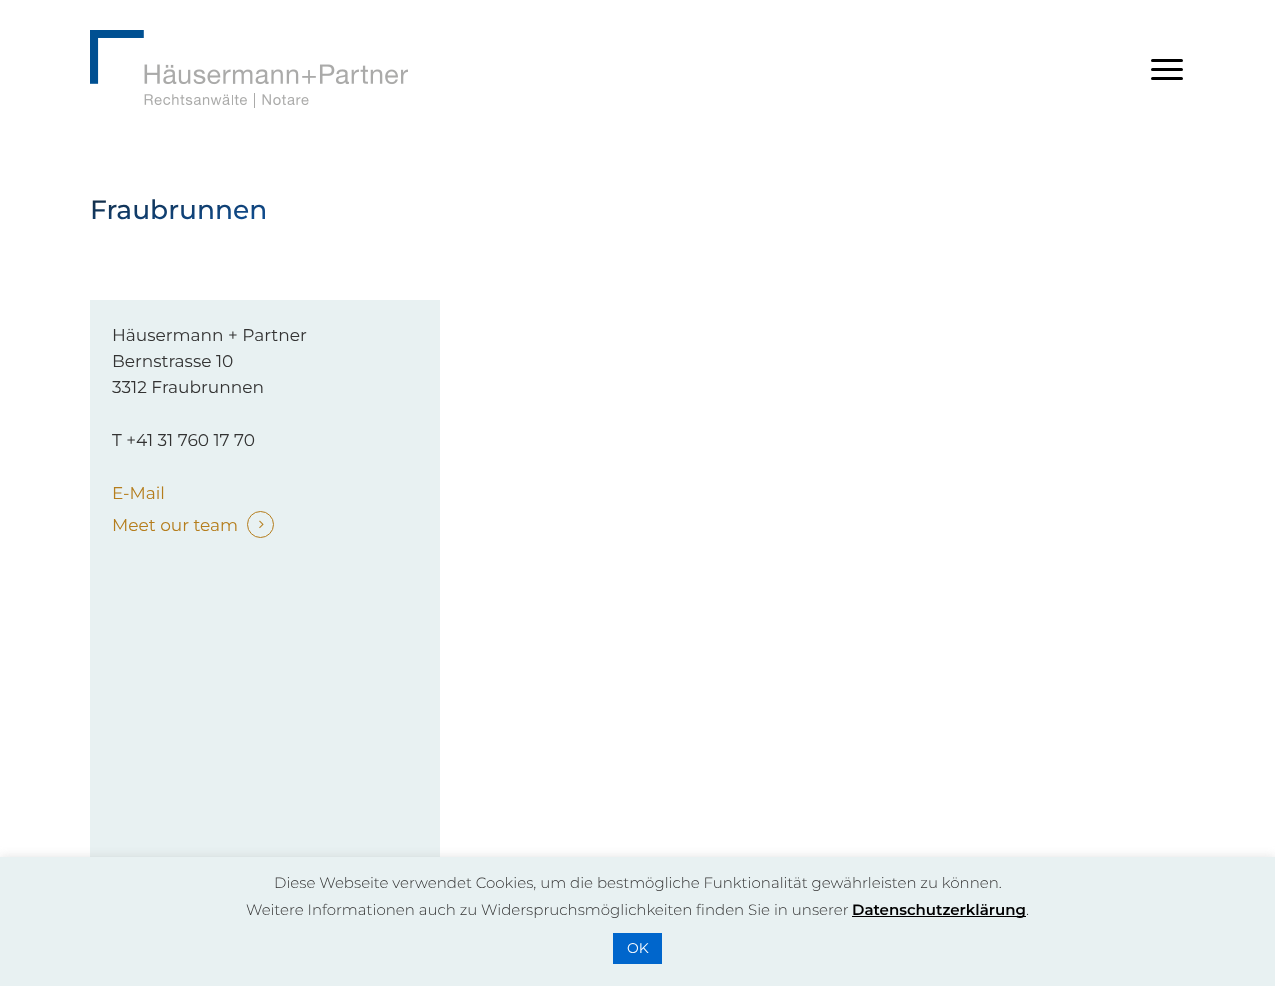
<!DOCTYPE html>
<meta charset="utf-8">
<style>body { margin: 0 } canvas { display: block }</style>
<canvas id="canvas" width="1275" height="986"></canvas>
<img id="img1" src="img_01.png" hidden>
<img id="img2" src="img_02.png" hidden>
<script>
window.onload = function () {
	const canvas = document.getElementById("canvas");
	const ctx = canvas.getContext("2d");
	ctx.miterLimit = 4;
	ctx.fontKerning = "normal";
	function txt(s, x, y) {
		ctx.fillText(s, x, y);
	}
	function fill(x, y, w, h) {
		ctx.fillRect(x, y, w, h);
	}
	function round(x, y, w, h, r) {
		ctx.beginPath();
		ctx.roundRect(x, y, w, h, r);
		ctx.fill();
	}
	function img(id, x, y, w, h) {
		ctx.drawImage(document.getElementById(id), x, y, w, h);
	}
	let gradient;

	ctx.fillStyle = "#FFFFFF";
	fill(0, 0, 1275, 986);
	img("img1", 90, 30, 318, 78);
	ctx.fillStyle = "#000000";
	round(1151, 59, 32, 3, 1.5);
	round(1151, 77, 32, 3, 1.5);
	round(1151, 68, 32, 3, 1.5);
	ctx.fillStyle = "#E8F1F2";
	fill(90, 300, 350, 557);
	img("img2", 259, 520, 5, 9);
	ctx.beginPath();
	ctx.arc(260.5, 524.5, 13, 0, Math.PI * 2);
	ctx.strokeStyle = "#B57D1C";
	ctx.stroke();
	ctx.fillStyle = "rgba(172, 171, 171, 0.3)";
	ctx.filter = "blur(5px)";
	ctx.beginPath();
	ctx.rect(0, 856, 1275, 129);
	ctx.fill();
	ctx.filter = "none";
	ctx.fillStyle = "#E8F1F2";
	fill(0, 857, 1275, 129);
	ctx.fillStyle = "#000000";
	fill(852, 916, 174, 1);
	ctx.fillStyle = "#0066CC";
	fill(613, 933, 49, 31);
	ctx.font = "500 26.5px Montserrat";
	gradient = ctx.createLinearGradient(173, 177, 185, 242);
	gradient.addColorStop(0, "#13293D");
	gradient.addColorStop(1, "#0E539F");
	ctx.fillStyle = gradient;
	txt("Fraubrunnen", 90, 219);
	ctx.font = "17px Montserrat";
	ctx.fillStyle = "#333333";
	txt("Häusermann + Partner", 112, 341);
	txt("Bernstrasse 10", 112, 367);
	txt("3312 Fraubrunnen", 112, 393);
	txt("T +41 31 760 17 70", 112, 446);
	ctx.fillStyle = "#B57D1C";
	txt("E-Mail", 112, 499);
	txt("Meet our team", 112, 531);
	ctx.font = "300 15px Montserrat";
	ctx.fillStyle = "#333333";
	txt("Diese Webseite verwendet Cookies, um die bestmögliche Funktionalität gewährleisten zu können.", 274, 888);
	txt("Weitere Informationen auch zu Widerspruchsmöglichkeiten finden Sie in unserer", 246, 915);
	ctx.font = "600 15px Montserrat";
	ctx.fillStyle = "#000000";
	txt("Datenschutzerklärung", 852, 915);
	ctx.font = "300 15px Montserrat";
	ctx.fillStyle = "#333333";
	txt(".", 1026, 915);
	ctx.font = "14px Montserrat";
	ctx.fillStyle = "#FFFFFF";
	txt("OK", 627, 953);
};
</script>
